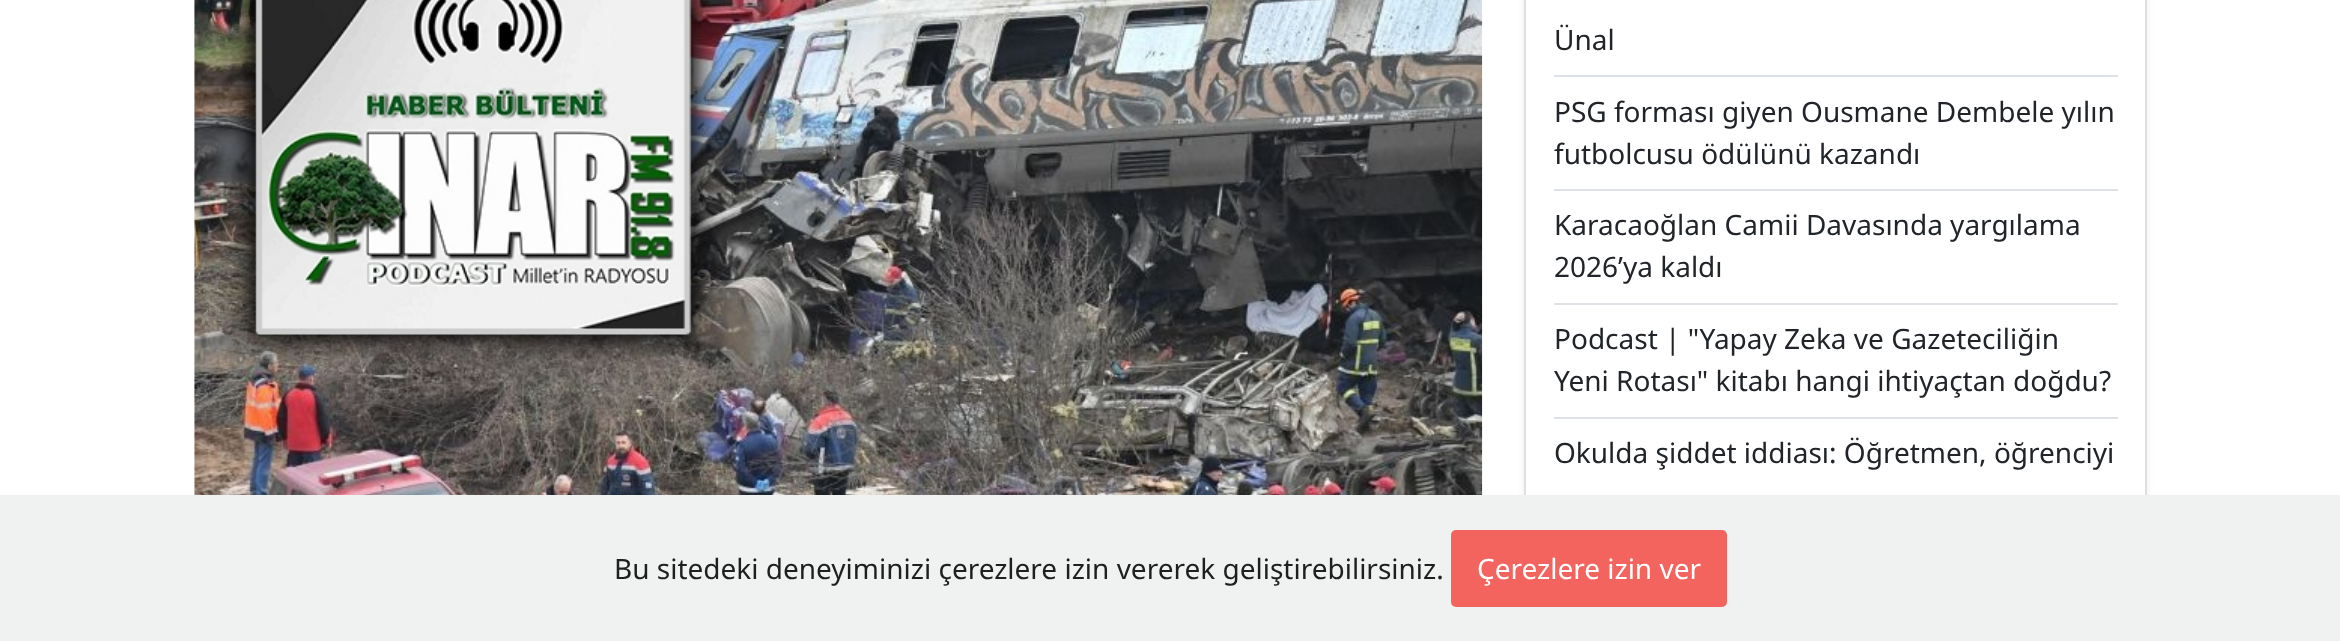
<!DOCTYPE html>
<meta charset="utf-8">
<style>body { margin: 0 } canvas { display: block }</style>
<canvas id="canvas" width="2340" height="641"></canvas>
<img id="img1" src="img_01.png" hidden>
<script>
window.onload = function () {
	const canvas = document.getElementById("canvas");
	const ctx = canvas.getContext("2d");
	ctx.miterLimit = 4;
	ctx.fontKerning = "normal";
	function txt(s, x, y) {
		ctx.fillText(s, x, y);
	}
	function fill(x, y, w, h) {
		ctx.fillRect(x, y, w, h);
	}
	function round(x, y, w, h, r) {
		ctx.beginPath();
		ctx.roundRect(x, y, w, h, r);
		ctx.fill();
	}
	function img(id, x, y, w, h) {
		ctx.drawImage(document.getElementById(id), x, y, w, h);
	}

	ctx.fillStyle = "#FFFFFF";
	fill(0, 0, 2340, 641);
	img("img1", 194, 0, 1289, 495);
	ctx.fillStyle = "rgba(0, 0, 0, 0.07)";
	ctx.filter = "blur(3.5px)";
	ctx.beginPath();
	ctx.roundRect(1524, -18, 623, 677, 7);
	ctx.fill();
	ctx.filter = "none";
	ctx.fillStyle = "#FFFFFF";
	fill(1526, 0, 619, 495);
	ctx.strokeStyle = "#DFDFDF";
	ctx.lineWidth = 2;
	ctx.strokeRect(1525, -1, 621, 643);
	ctx.fillStyle = "#DEE2E6";
	fill(1554, 75, 564, 2);
	fill(1554, 189, 564, 2);
	fill(1554, 303, 564, 2);
	fill(1554, 417, 564, 2);
	ctx.fillStyle = "#F0F2F1";
	fill(0, 495, 2340, 146);
	ctx.fillStyle = "#F4645F";
	round(1451, 530, 276, 77, 5);
	ctx.font = "28px Noto Sans";
	ctx.fillStyle = "#212529";
	txt("Ünal", 1554, 50);
	txt("PSG forması giyen Ousmane Dembele yılın", 1554, 122);
	txt("futbolcusu ödülünü kazandı", 1554, 164);
	txt("Karacaoğlan Camii Davasında yargılama", 1554, 235);
	txt("2026’ya kaldı", 1554, 277);
	txt("Podcast | \"Yapay Zeka ve Gazeteciliğin", 1554, 349);
	txt("Yeni Rotası\" kitabı hangi ihtiyaçtan doğdu?", 1554, 391);
	txt("Okulda şiddet iddiası: Öğretmen, öğrenciyi", 1554, 463);
	ctx.fillStyle = "#1F1F21";
	txt("Bu sitedeki deneyiminizi çerezlere izin vererek geliştirebilirsiniz.", 614, 579);
	ctx.fillStyle = "#FFFFFF";
	txt("Çerezlere izin ver", 1477, 579);
};
</script>
